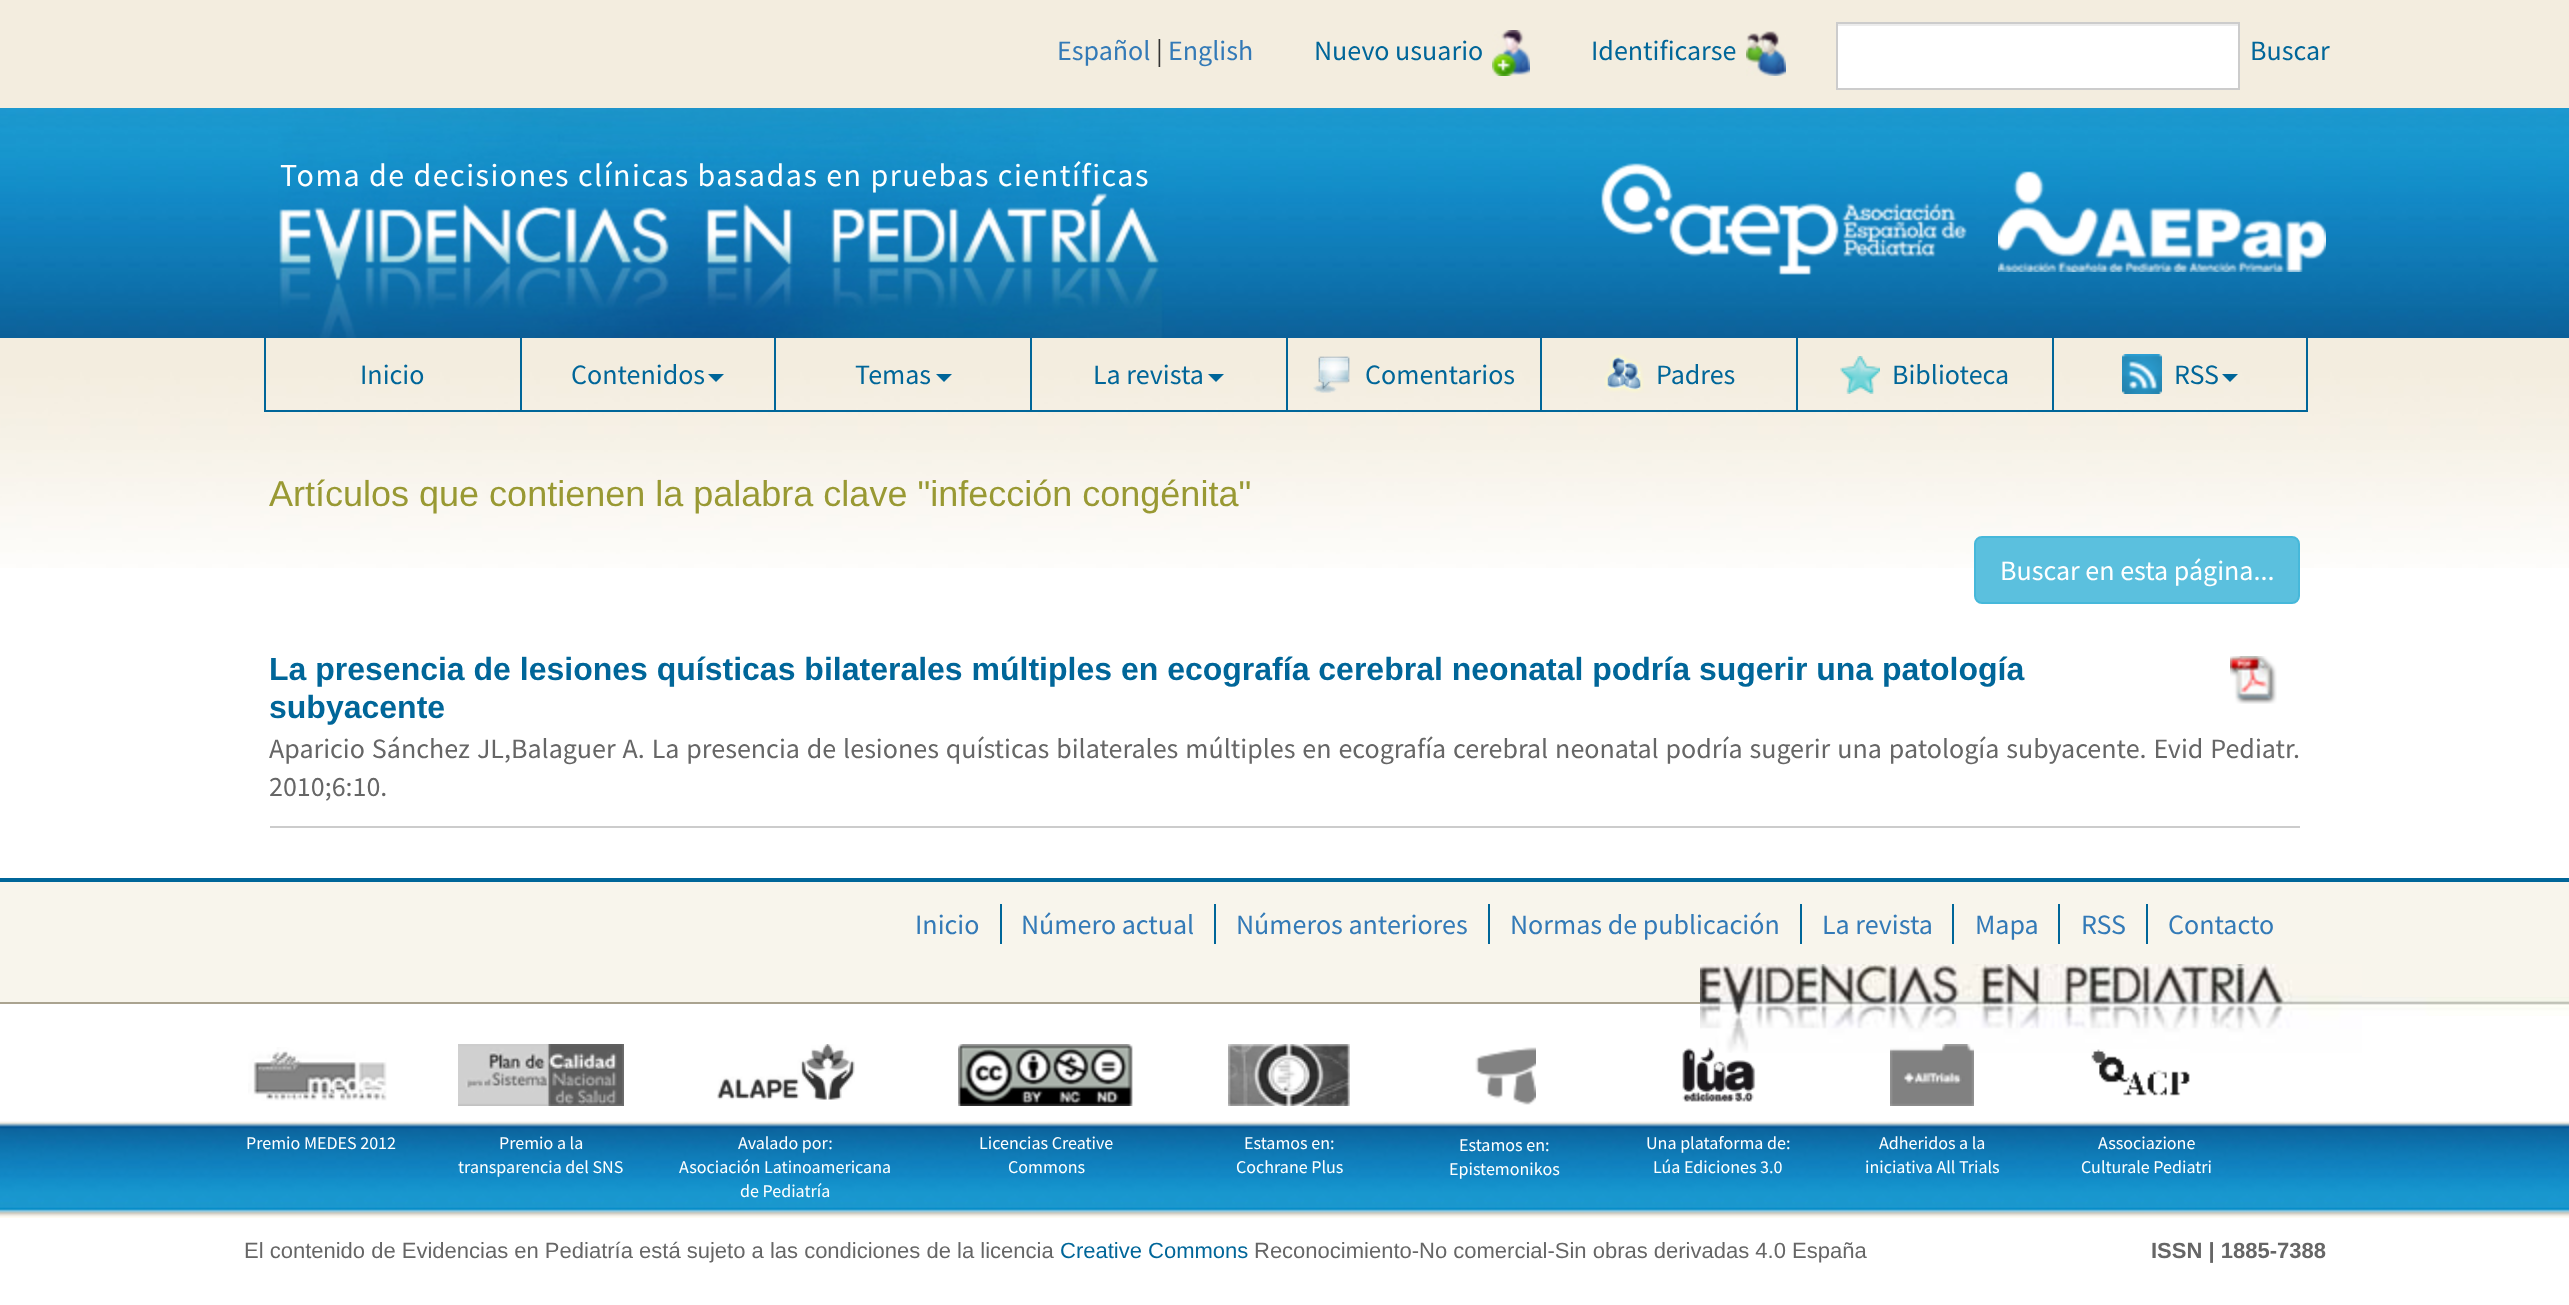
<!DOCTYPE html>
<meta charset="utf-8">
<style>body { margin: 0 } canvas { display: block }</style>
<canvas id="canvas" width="2569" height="1305"></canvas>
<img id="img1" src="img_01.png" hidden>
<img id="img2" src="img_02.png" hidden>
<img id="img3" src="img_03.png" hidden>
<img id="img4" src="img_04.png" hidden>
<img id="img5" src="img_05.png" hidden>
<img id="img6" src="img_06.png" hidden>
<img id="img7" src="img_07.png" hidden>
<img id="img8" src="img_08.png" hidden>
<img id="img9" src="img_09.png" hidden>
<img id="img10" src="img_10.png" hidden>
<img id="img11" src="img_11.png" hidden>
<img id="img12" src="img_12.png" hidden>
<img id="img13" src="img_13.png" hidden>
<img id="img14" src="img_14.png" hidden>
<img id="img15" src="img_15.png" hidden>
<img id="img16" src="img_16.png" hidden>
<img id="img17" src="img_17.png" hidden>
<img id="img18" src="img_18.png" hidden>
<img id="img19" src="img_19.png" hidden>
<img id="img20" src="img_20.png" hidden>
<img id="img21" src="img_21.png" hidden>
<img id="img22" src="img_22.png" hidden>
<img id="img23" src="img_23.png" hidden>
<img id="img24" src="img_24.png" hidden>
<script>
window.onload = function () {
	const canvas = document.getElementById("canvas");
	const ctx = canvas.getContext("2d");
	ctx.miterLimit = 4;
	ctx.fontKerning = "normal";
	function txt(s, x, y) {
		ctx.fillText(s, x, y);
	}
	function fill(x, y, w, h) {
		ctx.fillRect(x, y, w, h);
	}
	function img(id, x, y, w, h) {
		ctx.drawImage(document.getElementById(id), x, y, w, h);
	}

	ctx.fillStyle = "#FFFFFF";
	fill(0, 0, 2569, 1305);
	ctx.fillStyle = "#F3EDDF";
	fill(0, 0, 2569, 108);
	img("img1", 1492, 30, 38, 46);
	img("img2", 1746, 31, 40, 45);
	ctx.fillStyle = "#FFFFFF";
	fill(1838, 26, 400, 62);
	ctx.fillStyle = "#ECECEC";
	fill(1838, 24, 400, 2);
	ctx.strokeStyle = "#CCCCCC";
	ctx.lineWidth = 2;
	ctx.strokeRect(1837, 23, 402, 66);
	img("img3", 0, 108, 2569, 230);
	img("img4", 278, 108, 886, 230);
	img("img5", 1601, 163, 366, 112);
	img("img6", 1998, 171, 328, 101);
	img("img7", 0, 338, 2569, 230);
	ctx.fillStyle = "#006699";
	fill(264, 338, 2, 74);
	fill(520, 338, 2, 74);
	fill(266, 410, 256, 2);
	fill(774, 338, 2, 74);
	fill(522, 410, 254, 2);
	ctx.beginPath();
	ctx.moveTo(708, 374);
	ctx.lineTo(724, 374);
	ctx.lineTo(716, 382);
	ctx.closePath();
	ctx.fill();
	fill(1030, 338, 2, 74);
	fill(776, 410, 256, 2);
	ctx.beginPath();
	ctx.moveTo(936, 374);
	ctx.lineTo(952, 374);
	ctx.lineTo(944, 382);
	ctx.closePath();
	ctx.fill();
	fill(1286, 338, 2, 74);
	fill(1032, 410, 256, 2);
	ctx.beginPath();
	ctx.moveTo(1208, 374);
	ctx.lineTo(1224, 374);
	ctx.lineTo(1216, 382);
	ctx.closePath();
	ctx.fill();
	fill(1540, 338, 2, 74);
	fill(1288, 410, 254, 2);
	img("img8", 1313, 356, 37, 37);
	fill(1796, 338, 2, 74);
	fill(1542, 410, 256, 2);
	img("img9", 1604, 354, 40, 39);
	fill(2052, 338, 2, 74);
	fill(1798, 410, 256, 2);
	img("img10", 1840, 356, 40, 38);
	fill(2306, 338, 2, 74);
	fill(2054, 410, 254, 2);
	img("img11", 2122, 354, 40, 40);
	ctx.beginPath();
	ctx.moveTo(2222, 374);
	ctx.lineTo(2238, 374);
	ctx.lineTo(2230, 382);
	ctx.closePath();
	ctx.fill();
	ctx.fillStyle = "#5BC0DE";
	ctx.beginPath();
	ctx.roundRect(1975, 537, 324, 66, 7);
	ctx.fill();
	ctx.strokeStyle = "#46B8DA";
	ctx.stroke();
	ctx.fillStyle = "#CCCCCC";
	fill(270, 826, 2030, 2);
	img("img12", 2230, 656, 47, 48);
	ctx.fillStyle = "#006699";
	fill(0, 878, 2569, 4);
	ctx.fillStyle = "#F8F5EC";
	fill(0, 882, 2569, 120);
	ctx.fillStyle = "#AAA390";
	fill(0, 1002, 1700, 2);
	ctx.fillStyle = "#006699";
	fill(1000, 904, 2, 40);
	fill(1214, 904, 2, 40);
	fill(1488, 904, 2, 40);
	fill(1800, 904, 2, 40);
	fill(1952, 904, 2, 40);
	fill(2058, 904, 2, 40);
	fill(2146, 904, 2, 40);
	img("img13", 1700, 964, 662, 89);
	img("img14", 2362, 997, 207, 19);
	img("img15", 0, 1121, 2569, 97);
	img("img16", 248, 1047, 139, 54);
	img("img17", 458, 1044, 166, 62);
	img("img18", 717, 1044, 138, 56);
	img("img19", 958, 1044, 175, 62);
	img("img20", 1228, 1044, 122, 62);
	img("img21", 1475, 1047, 61, 58);
	img("img22", 1682, 1047, 74, 55);
	img("img23", 1890, 1044, 84, 62);
	img("img24", 2091, 1049, 99, 47);
	ctx.font = "28px Source Sans Pro";
	ctx.fillStyle = "#337AB7";
	txt("Español", 1057, 60);
	ctx.fillStyle = "#333333";
	txt("|", 1156, 60);
	ctx.fillStyle = "#337AB7";
	txt("English", 1168, 60);
	ctx.fillStyle = "#006699";
	txt("Nuevo usuario", 1314, 60);
	txt("Identificarse", 1591, 60);
	txt("Buscar", 2250, 60);
	ctx.letterSpacing = "1.5px";
	ctx.font = "32px Source Sans Pro";
	ctx.fillStyle = "#FFFFFF";
	txt("Toma de decisiones clínicas basadas en pruebas científicas", 280, 186);
	ctx.letterSpacing = "0px";
	ctx.font = "28px Source Sans Pro";
	ctx.fillStyle = "#006699";
	txt("Inicio", 360, 384);
	txt("Contenidos", 571, 384);
	txt("Temas", 855, 384);
	txt("La revista", 1093, 384);
	txt("Comentarios", 1365, 384);
	txt("Padres", 1656, 384);
	txt("Biblioteca", 1892, 384);
	txt("RSS", 2174, 384);
	ctx.font = "36px Liberation Sans";
	ctx.fillStyle = "#999933";
	txt("Artículos que contienen la palabra clave \"infección congénita\"", 269, 506);
	ctx.font = "28px Source Sans Pro";
	ctx.fillStyle = "#FFFFFF";
	txt("Buscar en esta página...", 2000, 580);
	ctx.font = "bold 32px Liberation Sans";
	ctx.fillStyle = "#006699";
	txt("La presencia de lesiones quísticas bilaterales múltiples en ecografía cerebral neonatal podría sugerir una patología", 269, 680);
	txt("subyacente", 269, 718);
	ctx.wordSpacing = "1.3px";
	ctx.font = "28px Source Sans Pro";
	ctx.fillStyle = "#666666";
	txt("Aparicio Sánchez JL,Balaguer A. La presencia de lesiones quísticas bilaterales múltiples en ecografía cerebral neonatal podría sugerir una patología subyacente. Evid Pediatr.", 269, 758);
	ctx.wordSpacing = "0px";
	txt("2010;6:10.", 269, 796);
	ctx.fillStyle = "#337AB7";
	txt("Inicio", 915, 934);
	txt("Número actual", 1021, 934);
	txt("Números anteriores", 1236, 934);
	txt("Normas de publicación", 1510, 934);
	txt("La revista", 1822, 934);
	txt("Mapa", 1975, 934);
	txt("RSS", 2081, 934);
	txt("Contacto", 2168, 934);
	ctx.font = "18px Source Sans Pro";
	ctx.fillStyle = "#FFFFFF";
	txt("Premio MEDES 2012", 246, 1149);
	txt("Premio a la", 499, 1149);
	txt("transparencia del SNS", 458, 1173);
	txt("Avalado por:", 738, 1149);
	txt("Asociación Latinoamericana", 679, 1173);
	txt("de Pediatría", 740, 1197);
	txt("Licencias Creative", 979, 1149);
	txt("Commons", 1008, 1173);
	txt("Estamos en:", 1244, 1149);
	txt("Cochrane Plus", 1236, 1173);
	txt("Estamos en:", 1459, 1151);
	txt("Epistemonikos", 1449, 1175);
	txt("Una plataforma de:", 1646, 1149);
	txt("Lúa Ediciones 3.0", 1653, 1173);
	txt("Adheridos a la", 1879, 1149);
	txt("iniciativa All Trials", 1865, 1173);
	txt("Associazione", 2098, 1149);
	txt("Culturale Pediatri", 2081, 1173);
	ctx.font = "22px Liberation Sans";
	ctx.fillStyle = "#666666";
	txt("El contenido de Evidencias en Pediatría está sujeto a las condiciones de la licencia", 244, 1258);
	ctx.fillStyle = "#006699";
	txt("Creative Commons", 1060, 1258);
	ctx.fillStyle = "#666666";
	txt("Reconocimiento-No comercial-Sin obras derivadas 4.0 España", 1254, 1258);
	ctx.font = "bold 22px Liberation Sans";
	txt("ISSN | 1885-7388", 2151, 1258);
};
</script>
